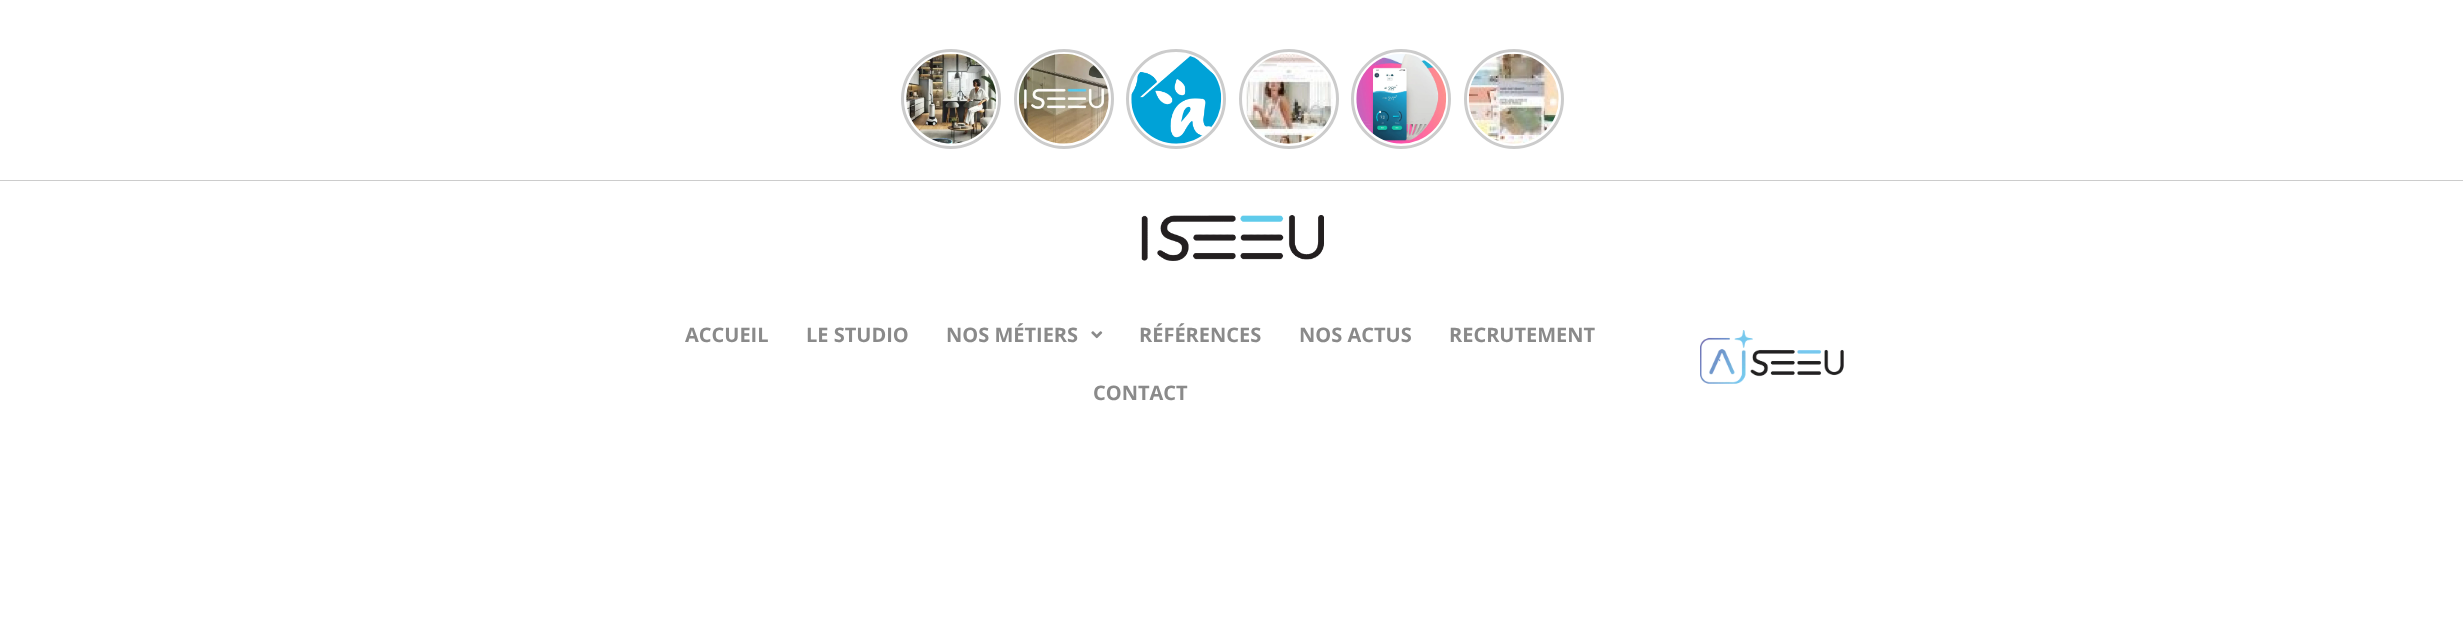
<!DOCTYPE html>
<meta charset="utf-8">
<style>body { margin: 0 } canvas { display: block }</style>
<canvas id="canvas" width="2463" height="620"></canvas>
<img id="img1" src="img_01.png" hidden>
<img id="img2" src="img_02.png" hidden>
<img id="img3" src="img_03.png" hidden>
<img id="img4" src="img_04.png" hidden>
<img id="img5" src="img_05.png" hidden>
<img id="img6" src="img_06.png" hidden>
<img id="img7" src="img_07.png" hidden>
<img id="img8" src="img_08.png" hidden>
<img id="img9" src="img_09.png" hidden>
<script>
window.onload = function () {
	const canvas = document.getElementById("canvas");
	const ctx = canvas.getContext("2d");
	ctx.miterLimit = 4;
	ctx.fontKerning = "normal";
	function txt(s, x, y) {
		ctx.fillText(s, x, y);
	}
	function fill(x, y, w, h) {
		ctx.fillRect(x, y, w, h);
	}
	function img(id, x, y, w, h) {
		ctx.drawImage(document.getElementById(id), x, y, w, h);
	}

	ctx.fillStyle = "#FFFFFF";
	fill(0, 0, 2463, 620);
	ctx.fillStyle = "#CCCCCC";
	fill(0, 180, 2463, 1);
	ctx.beginPath();
	ctx.arc(951, 99, 48.5, 0, Math.PI * 2);
	ctx.strokeStyle = "#CCCCCC";
	ctx.lineWidth = 3;
	ctx.stroke();
	img("img1", 906, 53, 91, 91);
	ctx.beginPath();
	ctx.arc(1064, 99, 48.5, 0, Math.PI * 2);
	ctx.stroke();
	img("img2", 1018, 53, 91, 91);
	ctx.beginPath();
	ctx.arc(1176, 99, 48.5, 0, Math.PI * 2);
	ctx.stroke();
	img("img3", 1131, 56, 91, 88);
	ctx.beginPath();
	ctx.arc(1289, 99, 48.5, 0, Math.PI * 2);
	ctx.stroke();
	img("img4", 1246, 54, 87, 90);
	ctx.beginPath();
	ctx.arc(1401, 99, 48.5, 0, Math.PI * 2);
	ctx.stroke();
	img("img5", 1356, 54, 91, 90);
	ctx.beginPath();
	ctx.arc(1514, 99, 48.5, 0, Math.PI * 2);
	ctx.stroke();
	img("img6", 1468, 53, 91, 91);
	img("img7", 1141, 215, 183, 46);
	img("img8", 1091, 331, 12, 8);
	img("img9", 1700, 330, 144, 54);
	ctx.font = "bold 20px Open Sans";
	ctx.fillStyle = "#8A8A8A";
	txt("ACCUEIL", 685, 342);
	txt("LE STUDIO", 806, 342);
	txt("NOS MÉTIERS", 946, 342);
	txt("RÉFÉRENCES", 1139, 342);
	txt("NOS ACTUS", 1299, 342);
	txt("RECRUTEMENT", 1449, 342);
	txt("CONTACT", 1093, 400);
};
</script>
